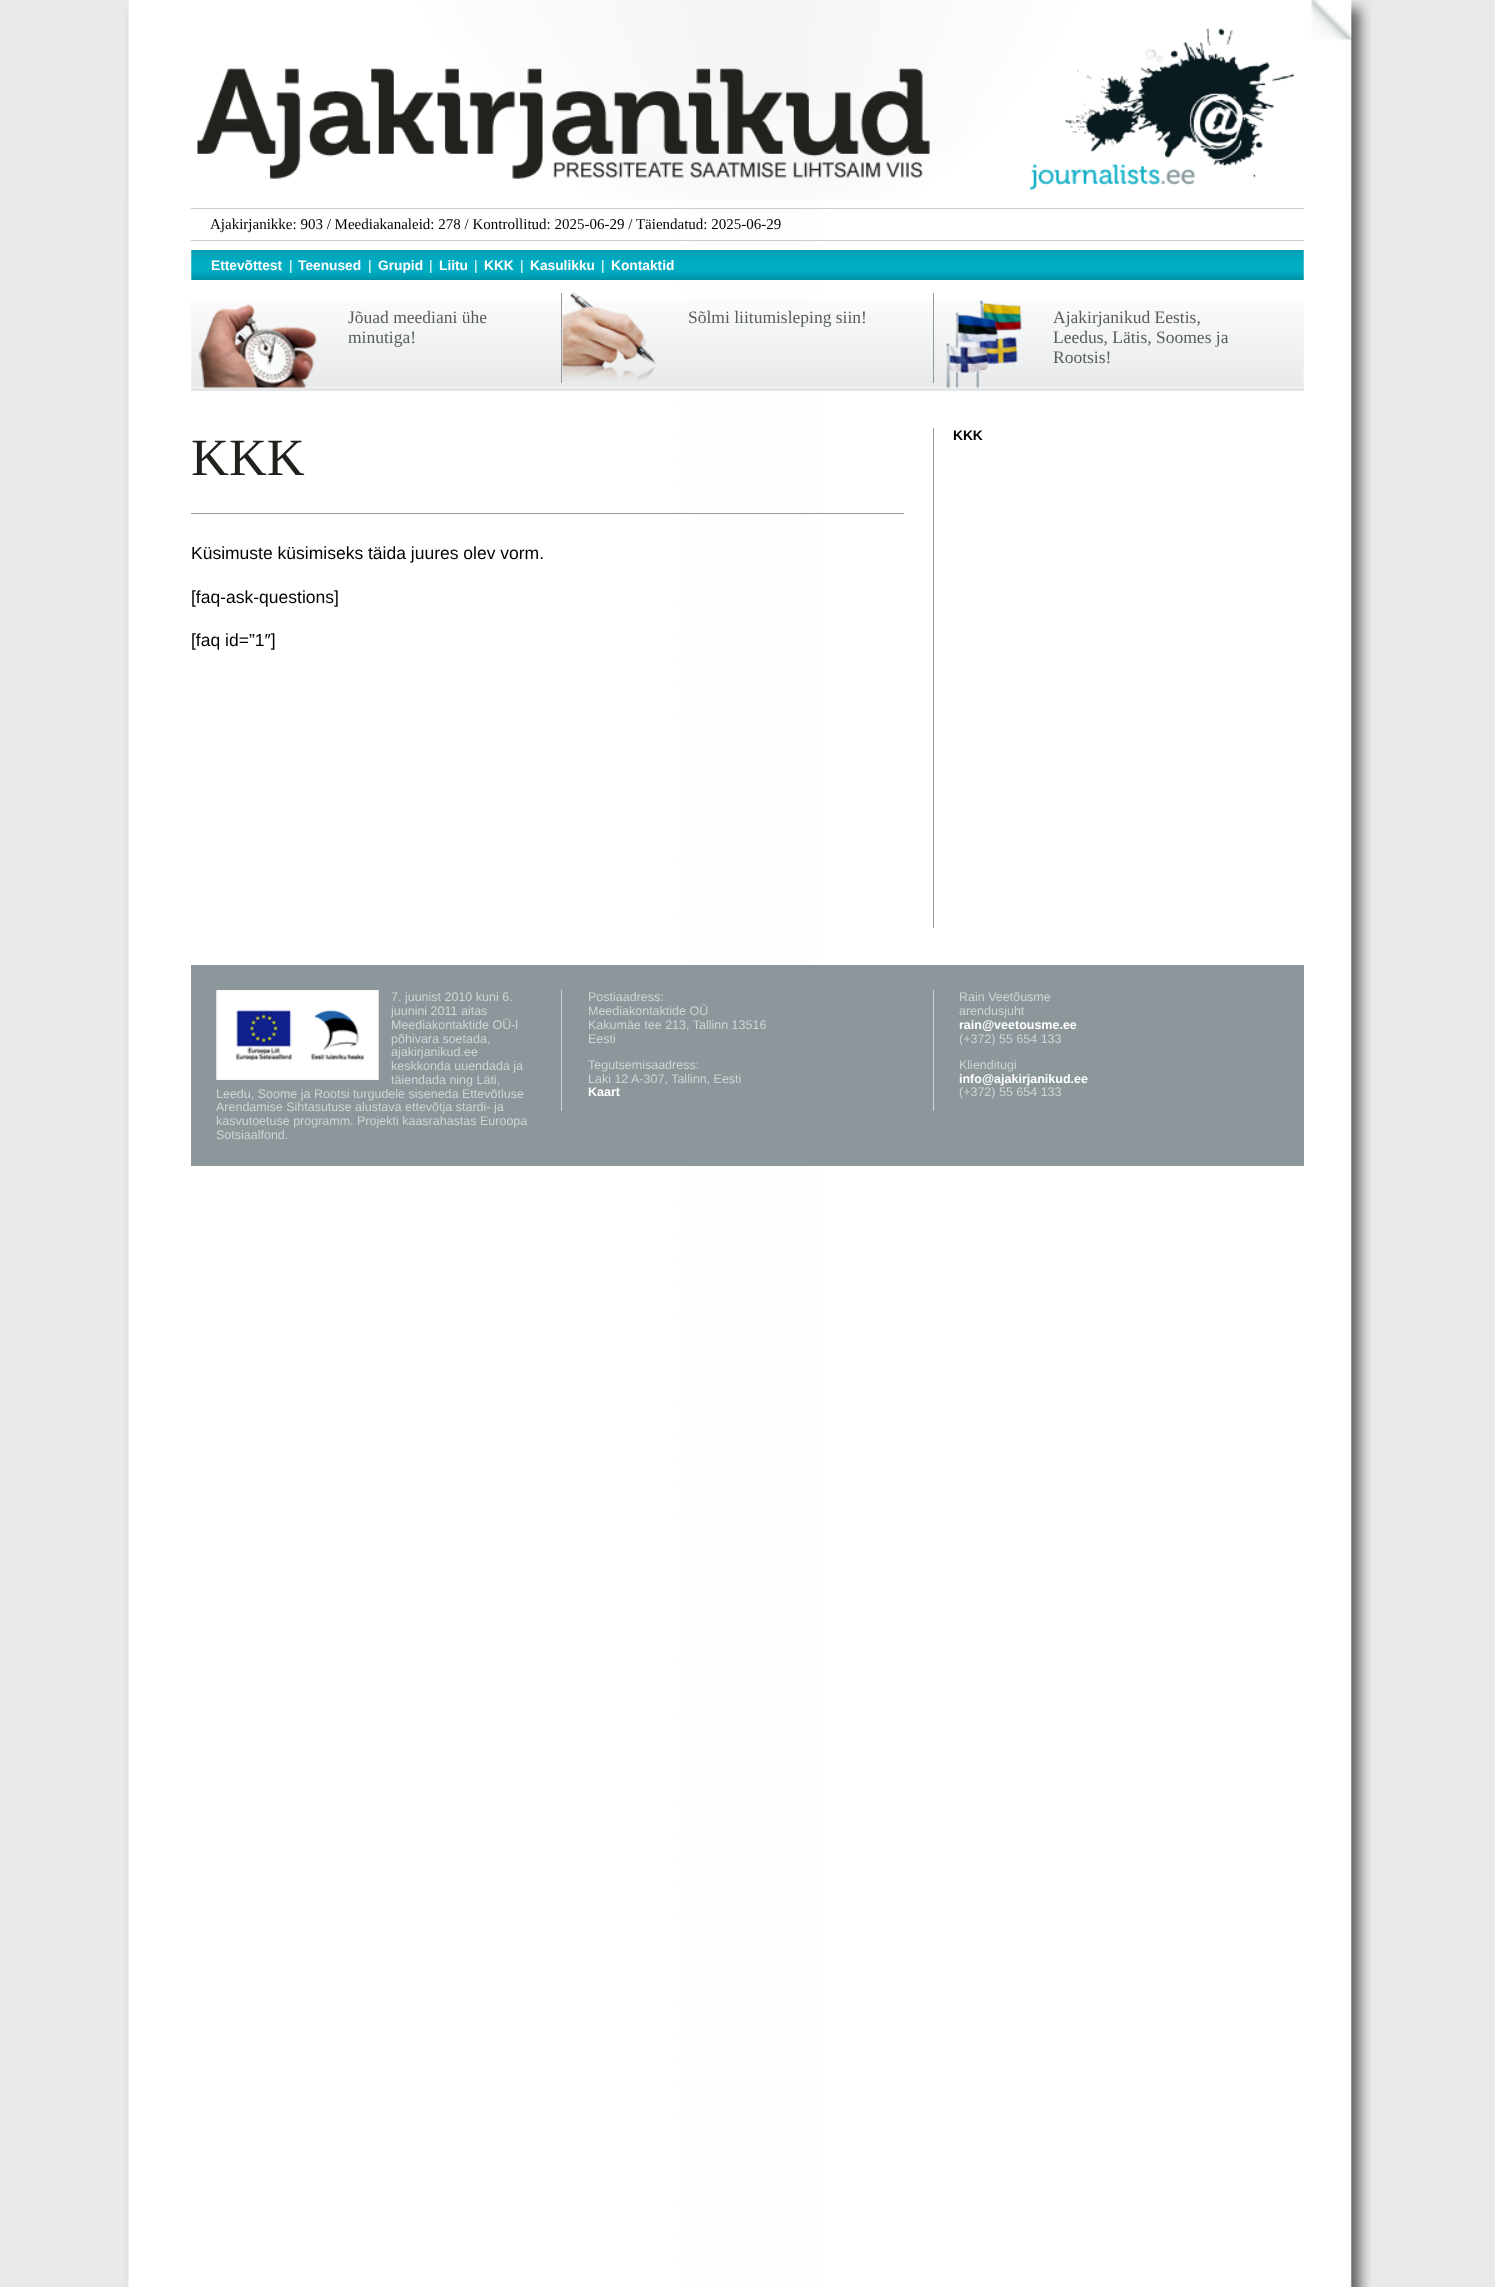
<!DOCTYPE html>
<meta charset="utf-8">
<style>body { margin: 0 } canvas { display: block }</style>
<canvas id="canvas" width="1495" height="2287"></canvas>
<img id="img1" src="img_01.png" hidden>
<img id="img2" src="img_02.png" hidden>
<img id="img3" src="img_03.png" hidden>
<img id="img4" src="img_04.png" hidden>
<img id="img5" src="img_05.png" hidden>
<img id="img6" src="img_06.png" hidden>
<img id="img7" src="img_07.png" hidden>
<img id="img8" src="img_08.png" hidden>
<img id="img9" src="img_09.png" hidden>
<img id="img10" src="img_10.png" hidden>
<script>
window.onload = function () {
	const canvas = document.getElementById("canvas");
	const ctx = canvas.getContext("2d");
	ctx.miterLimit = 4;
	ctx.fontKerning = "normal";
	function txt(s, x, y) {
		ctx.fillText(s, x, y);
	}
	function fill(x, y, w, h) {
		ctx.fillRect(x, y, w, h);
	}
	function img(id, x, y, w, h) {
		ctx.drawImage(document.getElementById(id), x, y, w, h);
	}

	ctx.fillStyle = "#E7E9EA";
	fill(0, 0, 1495, 2287);
	img("img1", 125, 200, 1246, 2087);
	img("img2", 125, 0, 1246, 200);
	img("img3", 197, 68, 733, 111);
	img("img4", 1029, 28, 265, 162);
	ctx.fillStyle = "#CACDCE";
	fill(191, 208, 1113, 1);
	fill(191, 240, 1113, 1);
	img("img5", 191, 250, 1113, 30);
	img("img6", 191, 300, 1113, 88);
	img("img7", 198, 303, 119, 85);
	ctx.fillStyle = "#949B9C";
	fill(933, 293, 1, 90);
	fill(561, 293, 1, 90);
	img("img8", 562, 292, 95, 89);
	img("img9", 946, 300, 76, 88);
	ctx.fillStyle = "#E5E6E7";
	fill(191, 388, 1113, 3);
	ctx.fillStyle = "#949B9C";
	fill(933, 428, 1, 500);
	fill(191, 513, 713, 1);
	ctx.fillStyle = "#8D979B";
	fill(191, 965, 1113, 201);
	img("img10", 216, 990, 163, 90);
	ctx.fillStyle = "#D0D4D5";
	fill(933, 990, 1, 121);
	fill(561, 990, 1, 121);
	ctx.font = "15px Liberation Serif";
	ctx.fillStyle = "#000000";
	txt("Ajakirjanikke: 903 / Meediakanaleid: 278 / Kontrollitud: 2025-06-29 / Täiendatud: 2025-06-29", 210, 229);
	ctx.font = "bold 13.75px Liberation Sans";
	ctx.fillStyle = "#FFFFFF";
	txt("Ettevõttest", 211, 270);
	ctx.font = "13.75px Liberation Sans";
	txt("|", 289, 270);
	ctx.font = "bold 13.75px Liberation Sans";
	txt("Teenused", 298, 270);
	ctx.font = "13.75px Liberation Sans";
	txt("|", 368, 270);
	ctx.font = "bold 13.75px Liberation Sans";
	txt("Grupid", 378, 270);
	ctx.font = "13.75px Liberation Sans";
	txt("|", 429, 270);
	ctx.font = "bold 13.75px Liberation Sans";
	txt("Liitu", 439, 270);
	ctx.font = "13.75px Liberation Sans";
	txt("|", 474, 270);
	ctx.font = "bold 13.75px Liberation Sans";
	txt("KKK", 484, 270);
	ctx.font = "13.75px Liberation Sans";
	txt("|", 520, 270);
	ctx.font = "bold 13.75px Liberation Sans";
	txt("Kasulikku", 530, 270);
	ctx.font = "13.75px Liberation Sans";
	txt("|", 601, 270);
	ctx.font = "bold 13.75px Liberation Sans";
	txt("Kontaktid", 611, 270);
	ctx.font = "17.5px Liberation Serif";
	ctx.fillStyle = "#585E5C";
	txt("Jõuad meediani ühe", 348, 323);
	txt("minutiga!", 348, 343);
	txt("Sõlmi liitumisleping siin!", 688, 323);
	txt("Ajakirjanikud Eestis,", 1053, 323);
	txt("Leedus, Lätis, Soomes ja", 1053, 343);
	txt("Rootsis!", 1053, 363);
	ctx.font = "bold 13.75px Liberation Sans";
	ctx.fillStyle = "#000000";
	txt("KKK", 953, 440);
	ctx.font = "52.5px Liberation Serif";
	ctx.fillStyle = "#20221D";
	txt("KKK", 191, 475);
	ctx.font = "17.5px Liberation Sans";
	ctx.fillStyle = "#000000";
	txt("Küsimuste küsimiseks täida juures olev vorm.", 191, 559);
	txt("[faq-ask-questions]", 191, 603);
	txt("[faq id=”1″]", 191, 646);
	ctx.font = "12.5px Liberation Sans";
	ctx.fillStyle = "#D0D4D5";
	txt("7. juunist 2010 kuni 6.", 391, 1001);
	txt("juunini 2011 aitas", 391, 1015);
	txt("Meediakontaktide OÜ-l", 391, 1029);
	txt("põhivara soetada,", 391, 1043);
	txt("ajakirjanikud.ee", 391, 1056);
	txt("keskkonda uuendada ja", 391, 1070);
	txt("täiendada ning Läti,", 391, 1084);
	txt("Leedu, Soome ja Rootsi turgudele siseneda Ettevõtluse", 216, 1098);
	txt("Arendamise Sihtasutuse alustava ettevõtja stardi- ja", 216, 1111);
	txt("kasvutoetuse programm. Projekti kaasrahastas Euroopa", 216, 1125);
	txt("Sotsiaalfond.", 216, 1139);
	txt("Postiaadress:", 588, 1001);
	txt("Meediakontaktide OÜ", 588, 1015);
	txt("Kakumäe tee 213, Tallinn 13516", 588, 1029);
	txt("Eesti", 588, 1043);
	txt("Tegutsemisaadress:", 588, 1069);
	txt("Laki 12 A-307, Tallinn, Eesti", 588, 1083);
	ctx.font = "bold 12.5px Liberation Sans";
	ctx.fillStyle = "#FFFFFF";
	txt("Kaart", 588, 1096);
	ctx.font = "12.5px Liberation Sans";
	ctx.fillStyle = "#D0D4D5";
	txt("Rain Veetõusme", 959, 1001);
	txt("arendusjuht", 959, 1015);
	ctx.font = "bold 12.5px Liberation Sans";
	ctx.fillStyle = "#FFFFFF";
	txt("rain@veetousme.ee", 959, 1029);
	ctx.font = "12.5px Liberation Sans";
	ctx.fillStyle = "#D0D4D5";
	txt("(+372) 55 654 133", 959, 1043);
	txt("Klienditugi", 959, 1069);
	ctx.font = "bold 12.5px Liberation Sans";
	ctx.fillStyle = "#FFFFFF";
	txt("info@ajakirjanikud.ee", 959, 1083);
	ctx.font = "12.5px Liberation Sans";
	ctx.fillStyle = "#D0D4D5";
	txt("(+372) 55 654 133", 959, 1096);
};
</script>
